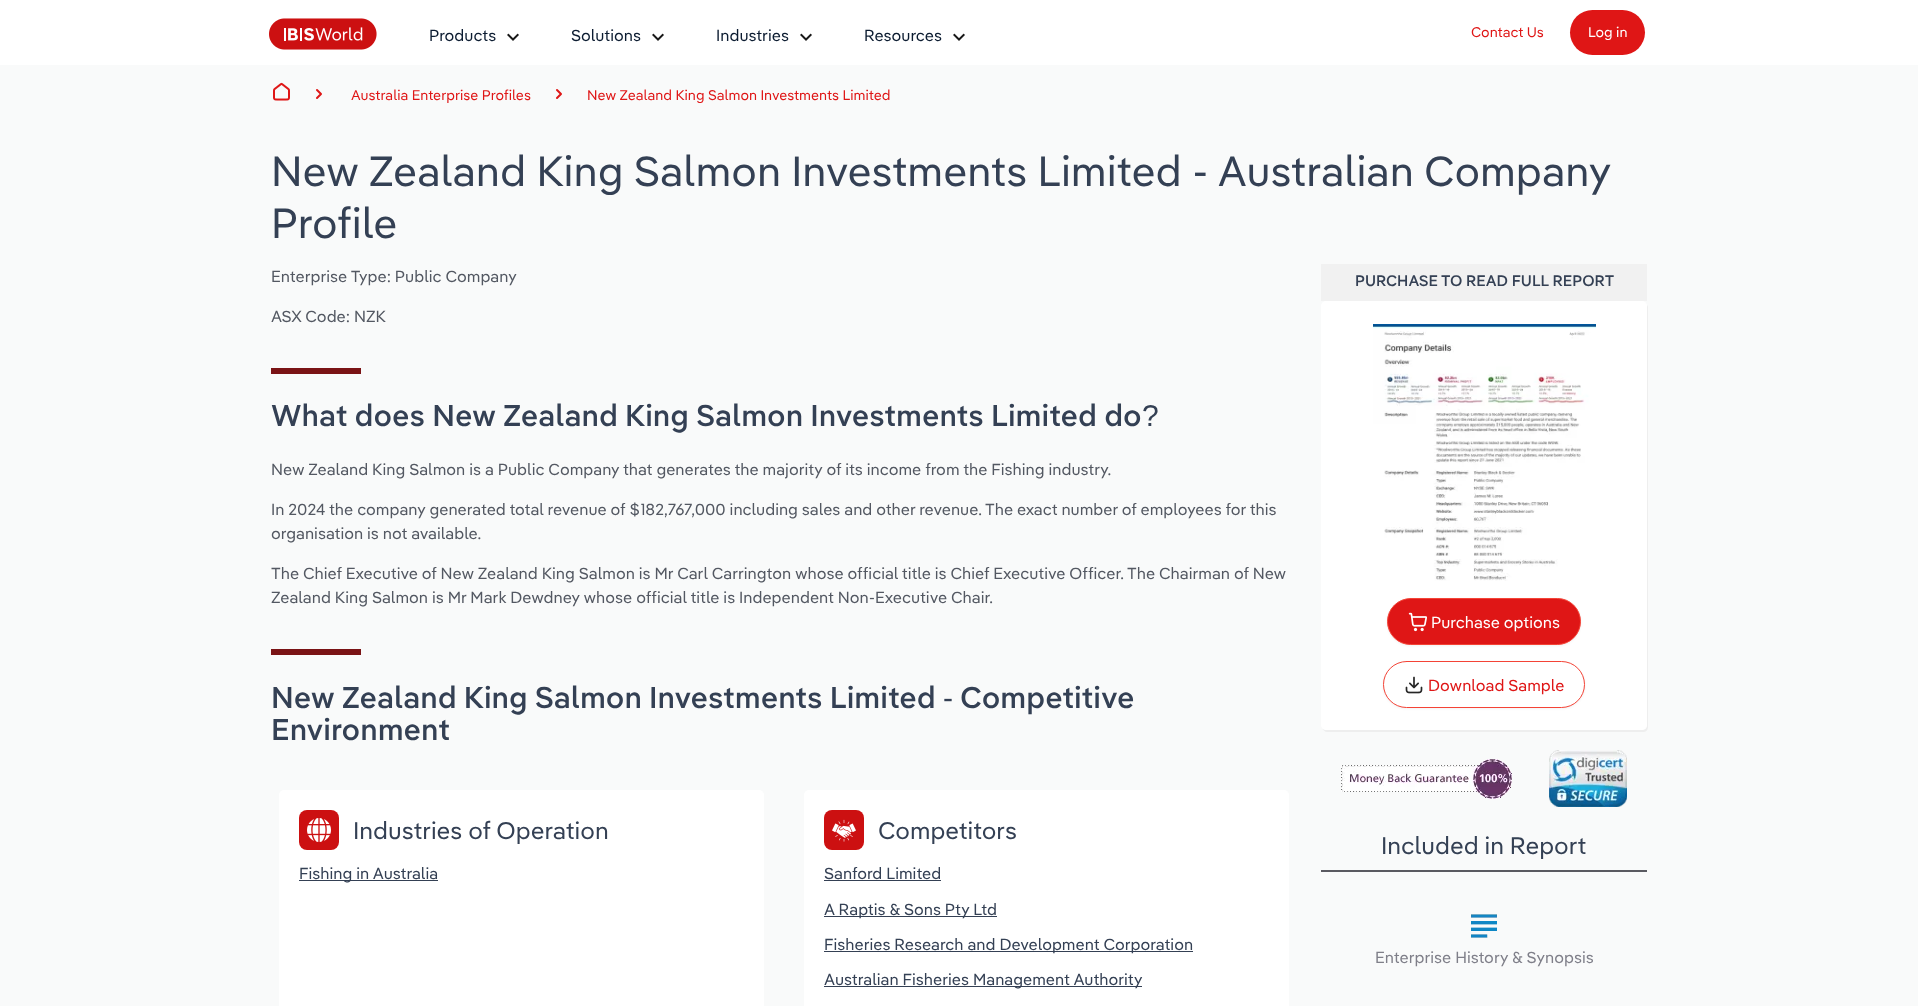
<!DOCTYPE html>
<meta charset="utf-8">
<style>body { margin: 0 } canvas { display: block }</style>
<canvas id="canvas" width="1918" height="1006"></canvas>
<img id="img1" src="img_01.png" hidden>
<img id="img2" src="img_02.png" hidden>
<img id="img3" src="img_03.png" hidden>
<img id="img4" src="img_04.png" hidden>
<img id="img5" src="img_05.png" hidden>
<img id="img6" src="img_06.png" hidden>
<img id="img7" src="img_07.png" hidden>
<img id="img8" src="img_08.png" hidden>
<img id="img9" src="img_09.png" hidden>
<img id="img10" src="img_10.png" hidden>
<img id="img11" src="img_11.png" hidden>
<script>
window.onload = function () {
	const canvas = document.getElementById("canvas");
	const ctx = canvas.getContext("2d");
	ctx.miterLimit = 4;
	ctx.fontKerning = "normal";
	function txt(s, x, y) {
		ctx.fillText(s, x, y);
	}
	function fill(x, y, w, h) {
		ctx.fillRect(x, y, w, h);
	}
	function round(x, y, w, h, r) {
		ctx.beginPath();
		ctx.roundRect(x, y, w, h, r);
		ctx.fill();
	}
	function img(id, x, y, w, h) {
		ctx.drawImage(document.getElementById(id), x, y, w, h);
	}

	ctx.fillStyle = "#F9FAFA";
	fill(0, 0, 1918, 1006);
	ctx.fillStyle = "#FFFFFF";
	fill(0, 0, 1918, 65);
	img("img1", 269, 18, 108, 32);
	img("img2", 507, 33, 12, 8);
	img("img2", 652, 33, 12, 8);
	img("img2", 800, 33, 12, 8);
	img("img2", 953, 33, 12, 8);
	ctx.fillStyle = "#DF1616";
	round(1570, 10, 75, 45, 22.5);
	img("img3", 273, 82, 17, 19);
	ctx.beginPath();
	ctx.moveTo(317, 98);
	ctx.lineTo(321, 94);
	ctx.lineTo(317, 90);
	ctx.strokeStyle = "#DF1616";
	ctx.lineWidth = 2;
	ctx.lineCap = "round";
	ctx.lineJoin = "round";
	ctx.stroke();
	ctx.beginPath();
	ctx.moveTo(557, 98);
	ctx.lineTo(561, 94);
	ctx.lineTo(557, 90);
	ctx.stroke();
	ctx.fillStyle = "#7A1315";
	fill(271, 368, 90, 6);
	fill(271, 649, 90, 6);
	ctx.fillStyle = "#FFFFFF";
	round(279, 790, 485, 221, 5);
	ctx.fillStyle = "#CC1011";
	round(299, 810, 40, 40, 8);
	img("img4", 307, 818, 24, 24);
	ctx.fillStyle = "#344054";
	fill(299, 880, 139, 1);
	ctx.fillStyle = "#FFFFFF";
	round(804, 790, 485, 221, 5);
	ctx.fillStyle = "#CC1011";
	round(824, 810, 40, 40, 8);
	img("img5", 832, 819, 24, 23);
	ctx.fillStyle = "#344054";
	fill(824, 880, 117, 1);
	fill(824, 916, 173, 1);
	fill(824, 951, 369, 1);
	fill(824, 986, 318, 1);
	ctx.fillStyle = "#F1F1F1";
	fill(1321, 264, 326, 37);
	ctx.fillStyle = "#EEEEEE";
	ctx.beginPath();
	ctx.moveTo(1322, 728);
	ctx.bezierCurveTo(1323, 730, 1325, 732, 1327, 732);
	ctx.lineTo(1643, 732);
	ctx.bezierCurveTo(1646, 732, 1648, 730, 1648, 727);
	ctx.lineTo(1648, 308);
	ctx.bezierCurveTo(1648, 307, 1648, 306, 1647, 305);
	ctx.lineTo(1647, 725);
	ctx.bezierCurveTo(1647, 728, 1645, 730, 1642, 730);
	ctx.lineTo(1326, 730);
	ctx.bezierCurveTo(1324, 730, 1323, 729, 1322, 728);
	ctx.closePath();
	ctx.fill();
	ctx.fillStyle = "#FFFFFF";
	round(1321, 301, 326, 429, 5);
	img("img6", 1373, 324, 223, 257);
	ctx.fillStyle = "rgba(16, 24, 40, 0.05)";
	ctx.filter = "blur(1px)";
	ctx.beginPath();
	ctx.roundRect(1387, 599, 194, 47, 23.5);
	ctx.fill();
	ctx.filter = "none";
	ctx.fillStyle = "#DF1616";
	ctx.beginPath();
	ctx.roundRect(1387.5, 598.5, 193, 46, 23);
	ctx.fill();
	ctx.strokeStyle = "#F44336";
	ctx.lineWidth = 1;
	ctx.lineJoin = "miter";
	ctx.stroke();
	img("img7", 1408, 612, 19, 20);
	ctx.fillStyle = "rgba(16, 24, 40, 0.05)";
	ctx.filter = "blur(1px)";
	ctx.beginPath();
	ctx.roundRect(1383, 662, 202, 47, 23.5);
	ctx.fill();
	ctx.filter = "none";
	ctx.fillStyle = "#FFFFFF";
	ctx.beginPath();
	ctx.roundRect(1383.5, 661.5, 201, 46, 23);
	ctx.fill();
	ctx.stroke();
	img("img8", 1405, 676, 18, 18);
	img("img9", 1341, 759, 171, 40);
	img("img10", 1549, 750, 78, 57);
	ctx.fillStyle = "#5A5A61";
	fill(1321, 870, 326, 2);
	img("img11", 1471, 914, 26, 24);
	ctx.font = "16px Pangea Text";
	ctx.fillStyle = "#0C1C31";
	txt("Products", 429, 41);
	txt("Solutions", 571, 41);
	txt("Industries", 716, 41);
	txt("Resources", 864, 41);
	ctx.font = "14px Pangea Text";
	ctx.fillStyle = "#DF1616";
	txt("Contact Us", 1471, 37);
	ctx.fillStyle = "#FFFFFF";
	txt("Log in", 1588, 37);
	ctx.fillStyle = "#DF1616";
	txt("Australia Enterprise Profiles", 351, 100);
	txt("New Zealand King Salmon Investments Limited", 587, 100);
	ctx.font = "42px Pangea Text";
	ctx.fillStyle = "#344054";
	txt("New Zealand King Salmon Investments Limited", 271, 186);
	txt("- Australian Company", 1192, 186);
	txt("Profile", 271, 238);
	ctx.font = "16px Pangea Text";
	ctx.fillStyle = "#535862";
	txt("Enterprise Type: Public Company", 271, 282);
	txt("ASX Code: NZK", 271, 322);
	ctx.font = "500 30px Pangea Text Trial";
	ctx.fillStyle = "#344054";
	txt("What does New Zealand King Salmon Investments Limited do", 271, 426);
	ctx.font = "30px Liberation Sans";
	txt("?", 1142, 426);
	ctx.font = "16px Pangea Text";
	ctx.fillStyle = "#535862";
	txt("New Zealand King Salmon is a Public Company that generates the majority of its income from the Fishing industry.", 271, 475);
	txt("In 2024 the company generated total revenue of $182,767,000 including sales and other revenue. The exact number of employees for this", 271, 515);
	txt("organisation is not available.", 271, 539);
	txt("The Chief Executive of New Zealand King Salmon is Mr Carl Carrington whose official title is Chief Executive Officer. The Chairman of New", 271, 579);
	txt("Zealand King Salmon is Mr Mark Dewdney whose official title is Independent Non-Executive Chair.", 271, 603);
	ctx.font = "500 30px Pangea Text Trial";
	ctx.fillStyle = "#344054";
	txt("New Zealand King Salmon Investments Limited", 271, 708);
	ctx.font = "30px Liberation Sans";
	txt("-", 943, 708);
	ctx.font = "500 30px Pangea Text Trial";
	txt("Competitive", 960, 708);
	txt("Environment", 271, 740);
	ctx.font = "24px Pangea Text";
	txt("Industries of Operation", 353, 839);
	ctx.font = "16px Pangea Text";
	txt("Fishing in Australia", 299, 879);
	ctx.font = "24px Pangea Text";
	txt("Competitors", 878, 839);
	ctx.font = "16px Pangea Text";
	txt("Sanford Limited", 824, 879);
	txt("A Raptis & Sons Pty Ltd", 824, 915);
	txt("Fisheries Research and Development Corporation", 824, 950);
	txt("Australian Fisheries Management Authority", 824, 985);
	ctx.font = "500 15.25px Pangea Text Trial";
	txt("PURCHASE TO READ FULL REPORT", 1355, 286);
	ctx.font = "16px Pangea Text";
	ctx.fillStyle = "#FFFFFF";
	txt("Purchase options", 1431, 628);
	ctx.fillStyle = "#DF1616";
	txt("Download Sample", 1428, 691);
	ctx.font = "24px Pangea Text";
	ctx.fillStyle = "#344054";
	txt("Included in Report", 1381, 854);
	ctx.font = "16px Pangea Text";
	ctx.fillStyle = "#7F7F89";
	txt("Enterprise History & Synopsis", 1375, 963);
};
</script>
